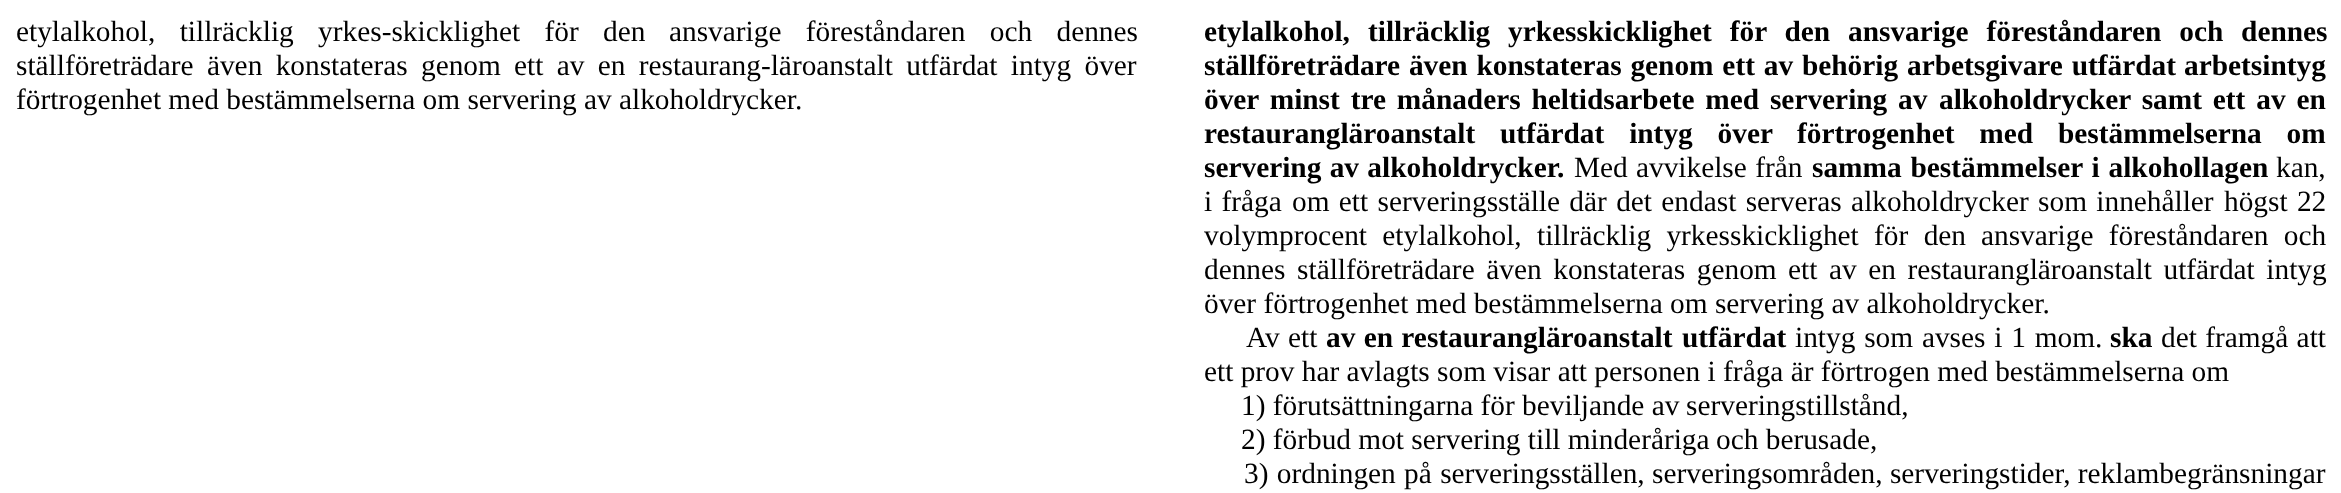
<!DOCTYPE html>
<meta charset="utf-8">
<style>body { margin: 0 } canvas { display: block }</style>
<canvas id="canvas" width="2341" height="493"></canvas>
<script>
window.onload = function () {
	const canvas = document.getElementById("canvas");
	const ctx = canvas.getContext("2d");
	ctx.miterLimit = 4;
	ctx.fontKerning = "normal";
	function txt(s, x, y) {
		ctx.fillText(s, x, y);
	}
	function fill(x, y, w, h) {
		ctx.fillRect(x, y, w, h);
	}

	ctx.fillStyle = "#FFFFFF";
	fill(0, 0, 2341, 493);
	ctx.wordSpacing = "17px";
	ctx.font = "29.35px Liberation Serif";
	ctx.fillStyle = "#000000";
	txt("etylalkohol, tillräcklig yrkes-skicklighet för den", 16, 41);
	txt("ansvarige föreståndaren och dennes", 669, 41);
	ctx.wordSpacing = "6px";
	txt("ställföreträdare även konstateras genom", 16, 75);
	txt("ett av en restaurang-läroanstalt utfärdat intyg över", 514, 75);
	ctx.wordSpacing = "0px";
	txt("förtrogenhet med bestämmelserna om servering av alkoholdrycker.", 16, 109);
	ctx.font = "bold 29.35px Liberation Serif";
	txt("etylalkohol,", 1204, 41);
	ctx.wordSpacing = "10.5px";
	txt("tillräcklig yrkesskicklighet för den ansvarige föreståndaren och dennes", 1368, 41);
	ctx.wordSpacing = "1.5px";
	txt("ställföreträdare även konstateras genom ett av behörig arbetsgivare utfärdat", 1204, 75);
	ctx.wordSpacing = "0px";
	txt("arbetsintyg", 2184, 75);
	ctx.wordSpacing = "3.5px";
	txt("över minst tre månaders heltidsarbete med servering av", 1204, 109);
	txt("alkoholdrycker samt ett av en", 1939, 109);
	ctx.wordSpacing = "17.5px";
	txt("restaurangläroanstalt utfärdat intyg över", 1204, 143);
	txt("förtrogenhet med bestämmelserna om", 1797, 143);
	ctx.wordSpacing = "1px";
	txt("servering av alkoholdrycker.", 1204, 177);
	ctx.wordSpacing = "0px";
	ctx.font = "29.35px Liberation Serif";
	txt("Med", 1574, 177);
	ctx.wordSpacing = "1px";
	txt("avvikelse från", 1636, 177);
	ctx.wordSpacing = "1.5px";
	ctx.font = "bold 29.35px Liberation Serif";
	txt("samma bestämmelser i alkohollagen", 1812, 177);
	ctx.wordSpacing = "0px";
	ctx.font = "29.35px Liberation Serif";
	txt("kan,", 2276, 177);
	ctx.wordSpacing = "2px";
	txt("i fråga", 1204, 211);
	txt("om ett serveringsställe där det endast serveras alkoholdrycker som innehåller", 1292, 211);
	txt("högst 22", 2224, 211);
	ctx.wordSpacing = "8px";
	txt("volymprocent etylalkohol, tillräcklig yrkesskicklighet för den", 1204, 245);
	txt("ansvarige föreståndaren och", 1981, 245);
	ctx.wordSpacing = "4.25px";
	txt("dennes ställföreträdare även konstateras genom", 1204, 279);
	txt("ett av en restaurangläroanstalt utfärdat intyg", 1788, 279);
	ctx.wordSpacing = "0px";
	txt("över förtrogenhet med bestämmelserna om servering av alkoholdrycker.", 1204, 313);
	ctx.wordSpacing = "1px";
	txt("Av ett", 1246, 347);
	ctx.font = "bold 29.35px Liberation Serif";
	txt("av en restaurangläroanstalt", 1326, 347);
	ctx.wordSpacing = "0px";
	txt("utfärdat", 1682, 347);
	ctx.wordSpacing = "1.5px";
	ctx.font = "29.35px Liberation Serif";
	txt("intyg som avses i 1 mom.", 1795, 347);
	ctx.wordSpacing = "0px";
	ctx.font = "bold 29.35px Liberation Serif";
	txt("ska", 2110, 347);
	ctx.wordSpacing = "1px";
	ctx.font = "29.35px Liberation Serif";
	txt("det framgå att", 2161, 347);
	ctx.wordSpacing = "0px";
	txt("ett prov har avlagts som visar att personen i fråga är förtrogen med bestämmelserna om", 1204, 381);
	txt("1) förutsättningarna för beviljande av", 1241, 415);
	txt("serveringstillstånd,", 1686, 415);
	txt("2) förbud mot servering till minderåriga", 1241, 449);
	txt("och berusade,", 1716, 449);
	ctx.wordSpacing = "1px";
	txt("3) ordningen på serveringsställen,", 1244, 483);
	ctx.wordSpacing = "0px";
	txt("serveringsområden, serveringstider, reklambegränsningar", 1652, 483);
};
</script>
